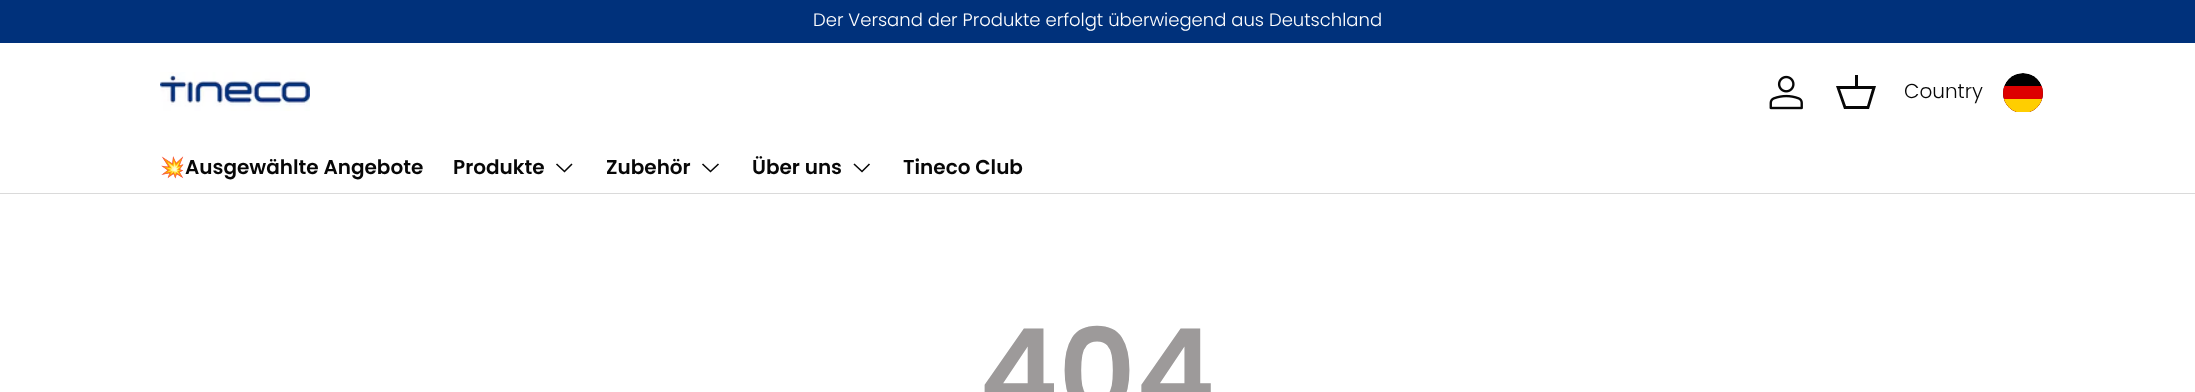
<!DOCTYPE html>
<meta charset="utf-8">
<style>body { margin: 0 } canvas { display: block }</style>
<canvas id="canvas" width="2195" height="392"></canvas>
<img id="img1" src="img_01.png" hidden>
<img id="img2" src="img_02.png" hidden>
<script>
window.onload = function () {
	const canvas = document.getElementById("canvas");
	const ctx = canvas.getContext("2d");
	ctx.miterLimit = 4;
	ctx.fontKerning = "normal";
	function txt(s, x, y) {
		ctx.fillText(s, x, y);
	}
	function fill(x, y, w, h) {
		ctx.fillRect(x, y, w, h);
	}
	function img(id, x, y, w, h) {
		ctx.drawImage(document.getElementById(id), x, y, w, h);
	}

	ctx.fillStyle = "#FFFFFF";
	fill(0, 0, 2195, 392);
	ctx.fillStyle = "#00317B";
	fill(0, 0, 2195, 43);
	ctx.fillStyle = "#DADADA";
	fill(0, 193, 2195, 1);
	img("img1", 160, 72, 150, 39);
	img("img2", 1769, 75, 34, 35);
	ctx.fillStyle = "#070707";
	ctx.beginPath();
	ctx.moveTo(1855, 86);
	ctx.lineTo(1855, 75);
	ctx.lineTo(1858, 75);
	ctx.lineTo(1858, 86);
	ctx.lineTo(1876, 86);
	ctx.lineTo(1869, 109);
	ctx.lineTo(1844, 109);
	ctx.lineTo(1836, 86);
	ctx.closePath();
	ctx.moveTo(1840, 89);
	ctx.lineTo(1846, 106);
	ctx.lineTo(1867, 106);
	ctx.lineTo(1872, 89);
	ctx.closePath();
	ctx.fill();
	ctx.save();
	ctx.beginPath();
	ctx.roundRect(2003, 73, 40, 40, 20);
	ctx.clip();
	ctx.fillStyle = "#000000";
	ctx.beginPath();
	ctx.roundRect(2003, 73, 40, 39, [20, 20, 0, 0]);
	ctx.fill();
	ctx.fillStyle = "#DD0000";
	fill(2003, 86, 40, 26);
	ctx.fillStyle = "#FFCE00";
	fill(2004, 99, 38, 13);
	ctx.restore();
	ctx.beginPath();
	ctx.moveTo(572, 164);
	ctx.lineTo(564.5, 171.5);
	ctx.lineTo(556.5, 164);
	ctx.strokeStyle = "#070707";
	ctx.lineWidth = 1.6;
	ctx.stroke();
	ctx.beginPath();
	ctx.moveTo(718.5, 164);
	ctx.lineTo(710.5, 171.5);
	ctx.lineTo(702.5, 164);
	ctx.stroke();
	ctx.beginPath();
	ctx.moveTo(869.5, 164);
	ctx.lineTo(862, 171.5);
	ctx.lineTo(854, 164);
	ctx.stroke();
	ctx.font = "300 18px Poppins";
	ctx.fillStyle = "#FFFFFF";
	txt("Der Versand der Produkte erfolgt überwiegend aus Deutschland", 813, 26);
	ctx.font = "300 20px Poppins";
	ctx.fillStyle = "#070707";
	txt("Country", 1904, 98);
	ctx.font = "bold 20px Noto Color Emoji";
	txt("💥", 160, 174);
	ctx.font = "600 20px Poppins";
	txt("Ausgewählte Angebote", 185, 174);
	txt("Produkte", 453, 174);
	txt("Zubehör", 606, 174);
	txt("Über uns", 752, 174);
	txt("Tineco Club", 903, 174);
	ctx.font = "600 120px Poppins";
	ctx.fillStyle = "#9D9A9A";
	txt("404", 979, 415);
};
</script>
